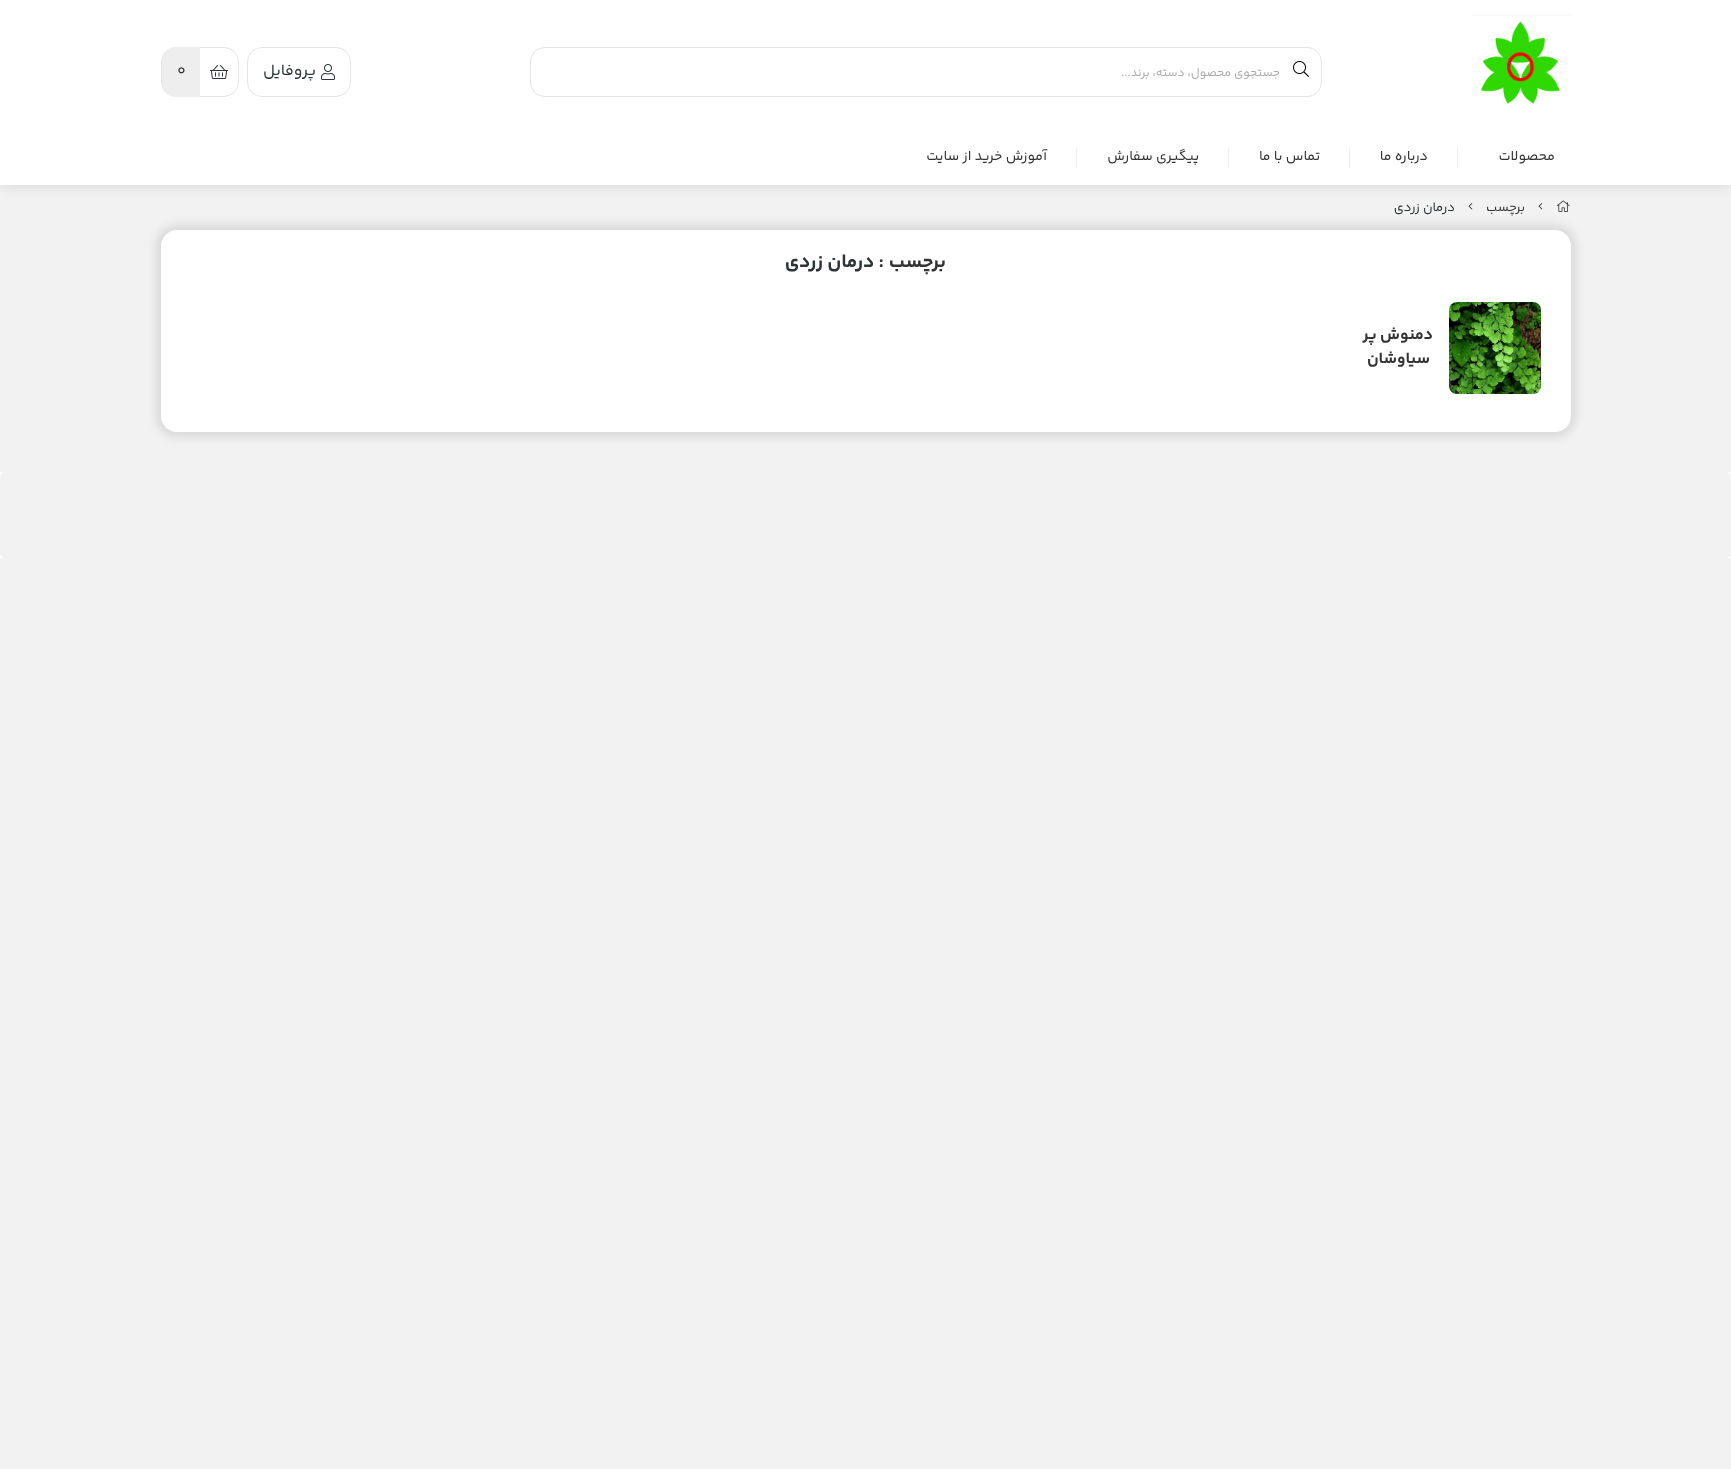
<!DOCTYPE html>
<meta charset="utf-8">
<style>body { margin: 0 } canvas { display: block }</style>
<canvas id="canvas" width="1731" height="1469"></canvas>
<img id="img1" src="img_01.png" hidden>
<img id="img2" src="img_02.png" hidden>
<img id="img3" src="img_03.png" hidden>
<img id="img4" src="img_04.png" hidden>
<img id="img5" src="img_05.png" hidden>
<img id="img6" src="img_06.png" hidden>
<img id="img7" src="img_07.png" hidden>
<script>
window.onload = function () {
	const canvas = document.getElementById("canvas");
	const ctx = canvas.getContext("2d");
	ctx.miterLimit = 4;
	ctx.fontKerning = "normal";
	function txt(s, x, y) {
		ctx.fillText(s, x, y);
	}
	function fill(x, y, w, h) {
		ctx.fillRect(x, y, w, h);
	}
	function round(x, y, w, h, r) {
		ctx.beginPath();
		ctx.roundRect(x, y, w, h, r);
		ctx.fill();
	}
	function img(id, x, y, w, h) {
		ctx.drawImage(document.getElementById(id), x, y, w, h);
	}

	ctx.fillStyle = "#F2F2F2";
	fill(0, 0, 1731, 1469);
	ctx.fillStyle = "rgba(0, 0, 0, 0.1)";
	ctx.filter = "blur(7.5px)";
	ctx.beginPath();
	ctx.rect(0, 1, 1731, 185);
	ctx.fill();
	ctx.filter = "none";
	ctx.fillStyle = "#FFFFFF";
	fill(0, 0, 1731, 185);
	img("img1", 1471, 15, 100, 89);
	ctx.beginPath();
	ctx.roundRect(530.5, 47.5, 791, 49, 14.5);
	ctx.strokeStyle = "#E4E4E4";
	ctx.stroke();
	img("img2", 1293, 61, 16, 16);
	ctx.beginPath();
	ctx.roundRect(247.5, 47.5, 103, 49, 14.5);
	ctx.stroke();
	img("img3", 321, 64, 14, 16);
	ctx.beginPath();
	ctx.roundRect(161.5, 47.5, 77, 49, 14.5);
	ctx.stroke();
	img("img4", 210, 65, 18, 14);
	ctx.fillStyle = "#EEEEEE";
	ctx.beginPath();
	ctx.roundRect(162, 47, 38, 50, [15, 0, 0, 15]);
	ctx.fill();
	fill(1457, 148, 1, 20);
	fill(1349, 148, 1, 20);
	fill(1228, 148, 1, 20);
	fill(1076, 148, 1, 20);
	img("img5", 1556, 200, 14, 12);
	img("img6", 1538, 203, 5, 7);
	img("img6", 1468, 203, 5, 7);
	ctx.fillStyle = "rgba(0, 0, 0, 0.1)";
	ctx.filter = "blur(5px)";
	ctx.beginPath();
	ctx.roundRect(156, 225, 1420, 212, 21);
	ctx.fill();
	ctx.filter = "none";
	ctx.fillStyle = "#FFFFFF";
	round(161, 230, 1410, 202, 16);
	img("img7", 1449, 302, 92, 92);
	fill(0, 472, 1731, 86);
	ctx.fillStyle = "#F2F2F2";
	round(0, 472, 1731, 86, 5);
	ctx.direction = "rtl";
	ctx.font = "12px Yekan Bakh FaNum";
	ctx.fillStyle = "#AAAAAA";
	txt("جستجوی محصول، دسته، برند...", 1280, 76);
	ctx.font = "16px Yekan Bakh FaNum";
	ctx.fillStyle = "#2D3436";
	txt("پروفایل", 316, 75);
	ctx.direction = "ltr";
	txt("0", 177, 75);
	ctx.direction = "rtl";
	ctx.font = "14px Yekan Bakh FaNum";
	ctx.fillStyle = "#333333";
	txt("محصولات", 1555, 160);
	txt("درباره ما", 1428, 160);
	txt("تماس با ما", 1320, 160);
	txt("پیگیری سفارش", 1199, 160);
	txt("آموزش خرید از سایت", 1047, 160);
	ctx.font = "13px Yekan Bakh FaNum";
	txt("برچسب", 1525, 211);
	ctx.fillStyle = "#2D3436";
	txt("درمان زردی", 1455, 211);
	ctx.font = "bold 19.25px Yekan Bakh FaNum";
	ctx.fillStyle = "#333333";
	txt("برچسب", 946, 267);
	ctx.fillStyle = "#2D3436";
	txt(": درمان زردی", 884, 267);
	ctx.font = "bold 16px Yekan Bakh FaNum";
	ctx.fillStyle = "#333333";
	txt("دمنوش پر", 1433, 339);
	txt("سیاوشان", 1430, 363);
};
</script>
